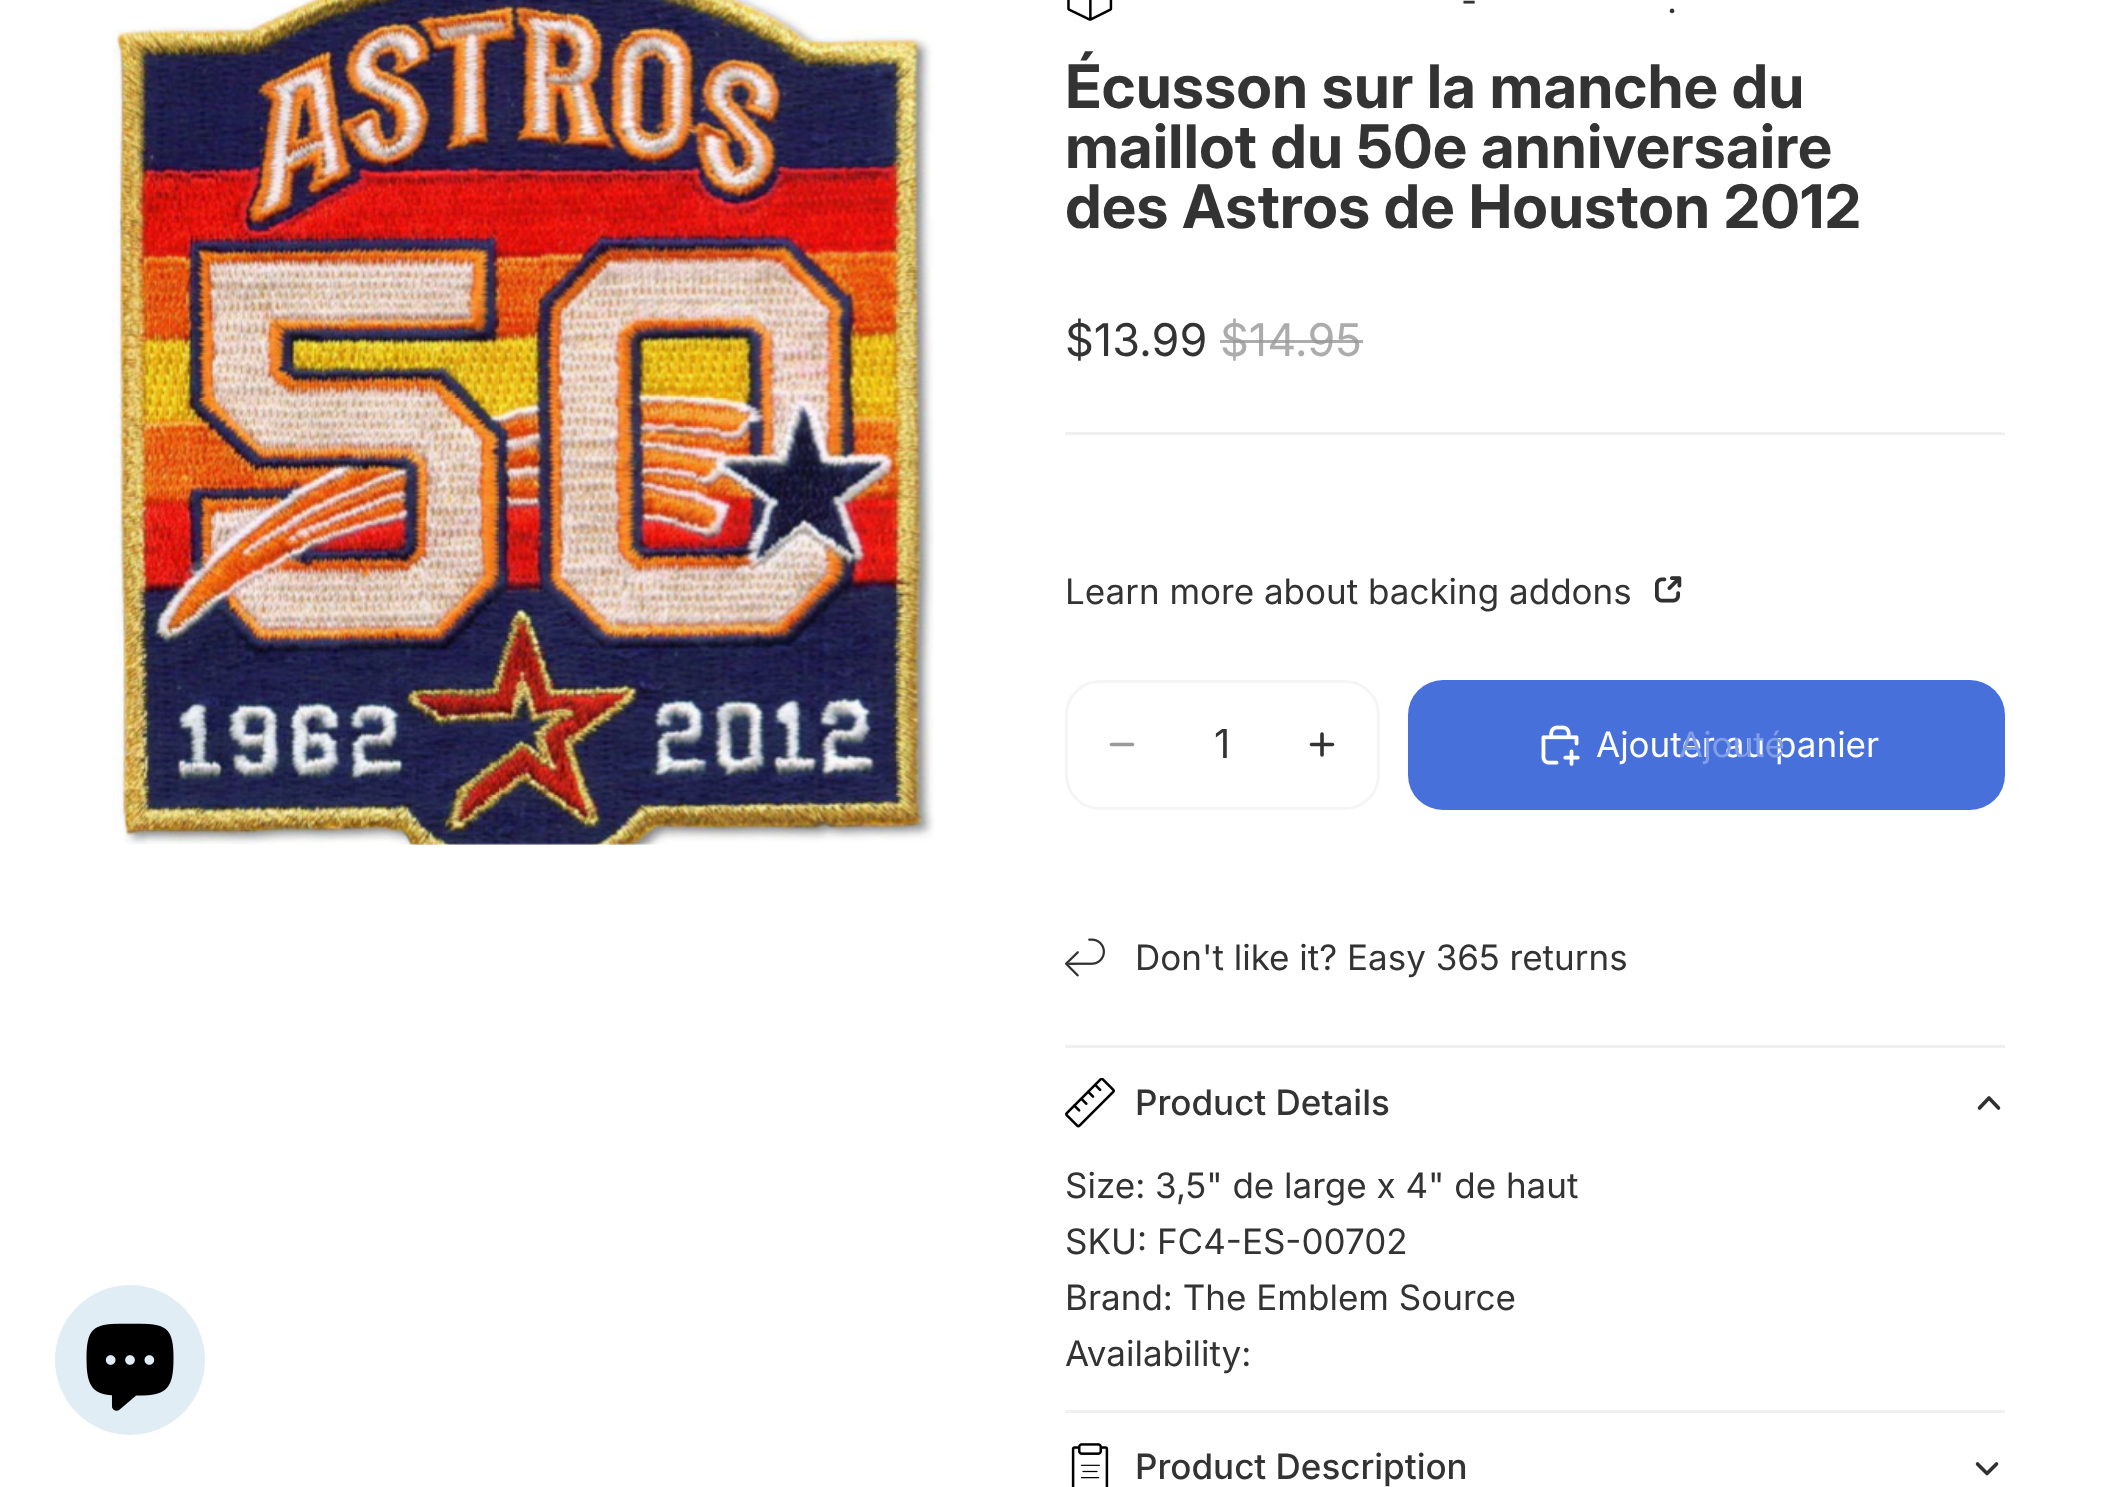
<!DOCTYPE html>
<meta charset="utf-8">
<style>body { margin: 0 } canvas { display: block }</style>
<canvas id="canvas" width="2104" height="1487"></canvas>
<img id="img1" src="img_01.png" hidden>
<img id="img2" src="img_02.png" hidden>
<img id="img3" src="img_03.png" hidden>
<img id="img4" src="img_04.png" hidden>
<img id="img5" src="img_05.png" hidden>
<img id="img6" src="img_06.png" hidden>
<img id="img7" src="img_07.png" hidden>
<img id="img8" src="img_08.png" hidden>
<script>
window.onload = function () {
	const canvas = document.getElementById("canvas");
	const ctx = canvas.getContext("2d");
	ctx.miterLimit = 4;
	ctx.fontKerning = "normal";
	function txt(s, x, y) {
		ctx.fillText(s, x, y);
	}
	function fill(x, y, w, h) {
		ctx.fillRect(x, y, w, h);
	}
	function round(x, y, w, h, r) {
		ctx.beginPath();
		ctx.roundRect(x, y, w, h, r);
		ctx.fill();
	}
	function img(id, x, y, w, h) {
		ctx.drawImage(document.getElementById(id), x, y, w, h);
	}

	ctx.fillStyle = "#FFFFFF";
	fill(0, 0, 2104, 1487);
	ctx.fillStyle = "#E1EDF5";
	ctx.beginPath();
	ctx.arc(130, 1360, 75, 0, Math.PI * 2);
	ctx.fill();
	img("img1", 86, 1323, 88, 88);
	img("img2", 112, 0, 822, 845);
	img("img3", 1067, 0, 46, 21);
	ctx.fillStyle = "#F0F0F0";
	ctx.beginPath();
	ctx.moveTo(2005, 432.5);
	ctx.lineTo(2005, 435);
	ctx.lineTo(2002.5, 432.5);
	ctx.closePath();
	ctx.fill();
	ctx.fillStyle = "rgba(0, 0, 0, 0.06)";
	ctx.beginPath();
	ctx.moveTo(2005, 435);
	ctx.lineTo(1065, 435);
	ctx.lineTo(1065, 432);
	ctx.lineTo(2002, 432);
	ctx.closePath();
	ctx.fill();
	img("img4", 1655, 576, 27, 27);
	ctx.beginPath();
	ctx.roundRect(1066.5, 681.5, 312, 127, 33.5);
	ctx.strokeStyle = "#F5F5F5";
	ctx.lineWidth = 3;
	ctx.stroke();
	ctx.beginPath();
	ctx.moveTo(1111.5, 744.5);
	ctx.lineTo(1132.5, 744.5);
	ctx.strokeStyle = "#999999";
	ctx.lineWidth = 3.6;
	ctx.lineCap = "round";
	ctx.stroke();
	ctx.beginPath();
	ctx.moveTo(1311.5, 744.5);
	ctx.lineTo(1332.5, 744.5);
	ctx.moveTo(1322, 734);
	ctx.lineTo(1322, 755);
	ctx.strokeStyle = "#333333";
	ctx.stroke();
	ctx.fillStyle = "#4770DB";
	round(1408, 680, 597, 130, 35);
	img("img5", 1541, 725, 39, 41);
	img("img6", 1065, 938, 40, 39);
	ctx.fillStyle = "#F0F0F0";
	fill(1065, 1045, 940, 3);
	img("img7", 1065, 1078, 50, 50);
	ctx.beginPath();
	ctx.moveTo(1979.5, 1108);
	ctx.lineTo(1989, 1098);
	ctx.lineTo(1998.5, 1108);
	ctx.strokeStyle = "#303030";
	ctx.lineJoin = "round";
	ctx.stroke();
	fill(1065, 1410, 940, 3);
	img("img8", 1071, 1443, 38, 44);
	ctx.beginPath();
	ctx.moveTo(1996.5, 1464);
	ctx.lineTo(1987, 1473.5);
	ctx.lineTo(1977.5, 1464);
	ctx.stroke();
	ctx.font = "35px Inter";
	ctx.fillStyle = "#333333";
	txt("-", 1461, 13);
	txt(".", 1667, 13);
	ctx.font = "bold 60px Inter";
	txt("Écusson sur la manche du", 1065, 108);
	txt("maillot du 50e anniversaire", 1065, 168);
	txt("des Astros de Houston 2012", 1065, 228);
	ctx.font = "45px Inter";
	txt("$13.99", 1065, 356);
	ctx.fillStyle = "#ACACAC";
	txt("$14.95", 1220, 356);
	ctx.fillStyle = "rgba(153, 153, 153, 0.81)";
	fill(1220, 340, 143, 3);
	ctx.font = "35px Inter";
	ctx.fillStyle = "#333333";
	txt("Learn more about backing addons", 1065, 604);
	ctx.font = "40px Inter";
	txt("1", 1214, 758);
	ctx.font = "35px Inter";
	ctx.fillStyle = "#FFFFFF";
	txt("Ajouter au panier", 1596, 757);
	ctx.fillStyle = "#819DE6";
	txt("Ajouté", 1679, 757);
	ctx.fillStyle = "#333333";
	txt("Don't like it? Easy 365 returns", 1135, 970);
	ctx.font = "500 35px Inter";
	txt("Product Details", 1135, 1115);
	ctx.font = "35px Inter";
	txt("Size: 3,5\" de large x 4\" de haut", 1065, 1198);
	txt("SKU: FC4-ES-00702", 1065, 1254);
	txt("Brand: The Emblem Source", 1065, 1310);
	txt("Availability:", 1065, 1366);
	ctx.font = "500 35px Inter";
	txt("Product Description", 1135, 1479);
};
</script>
